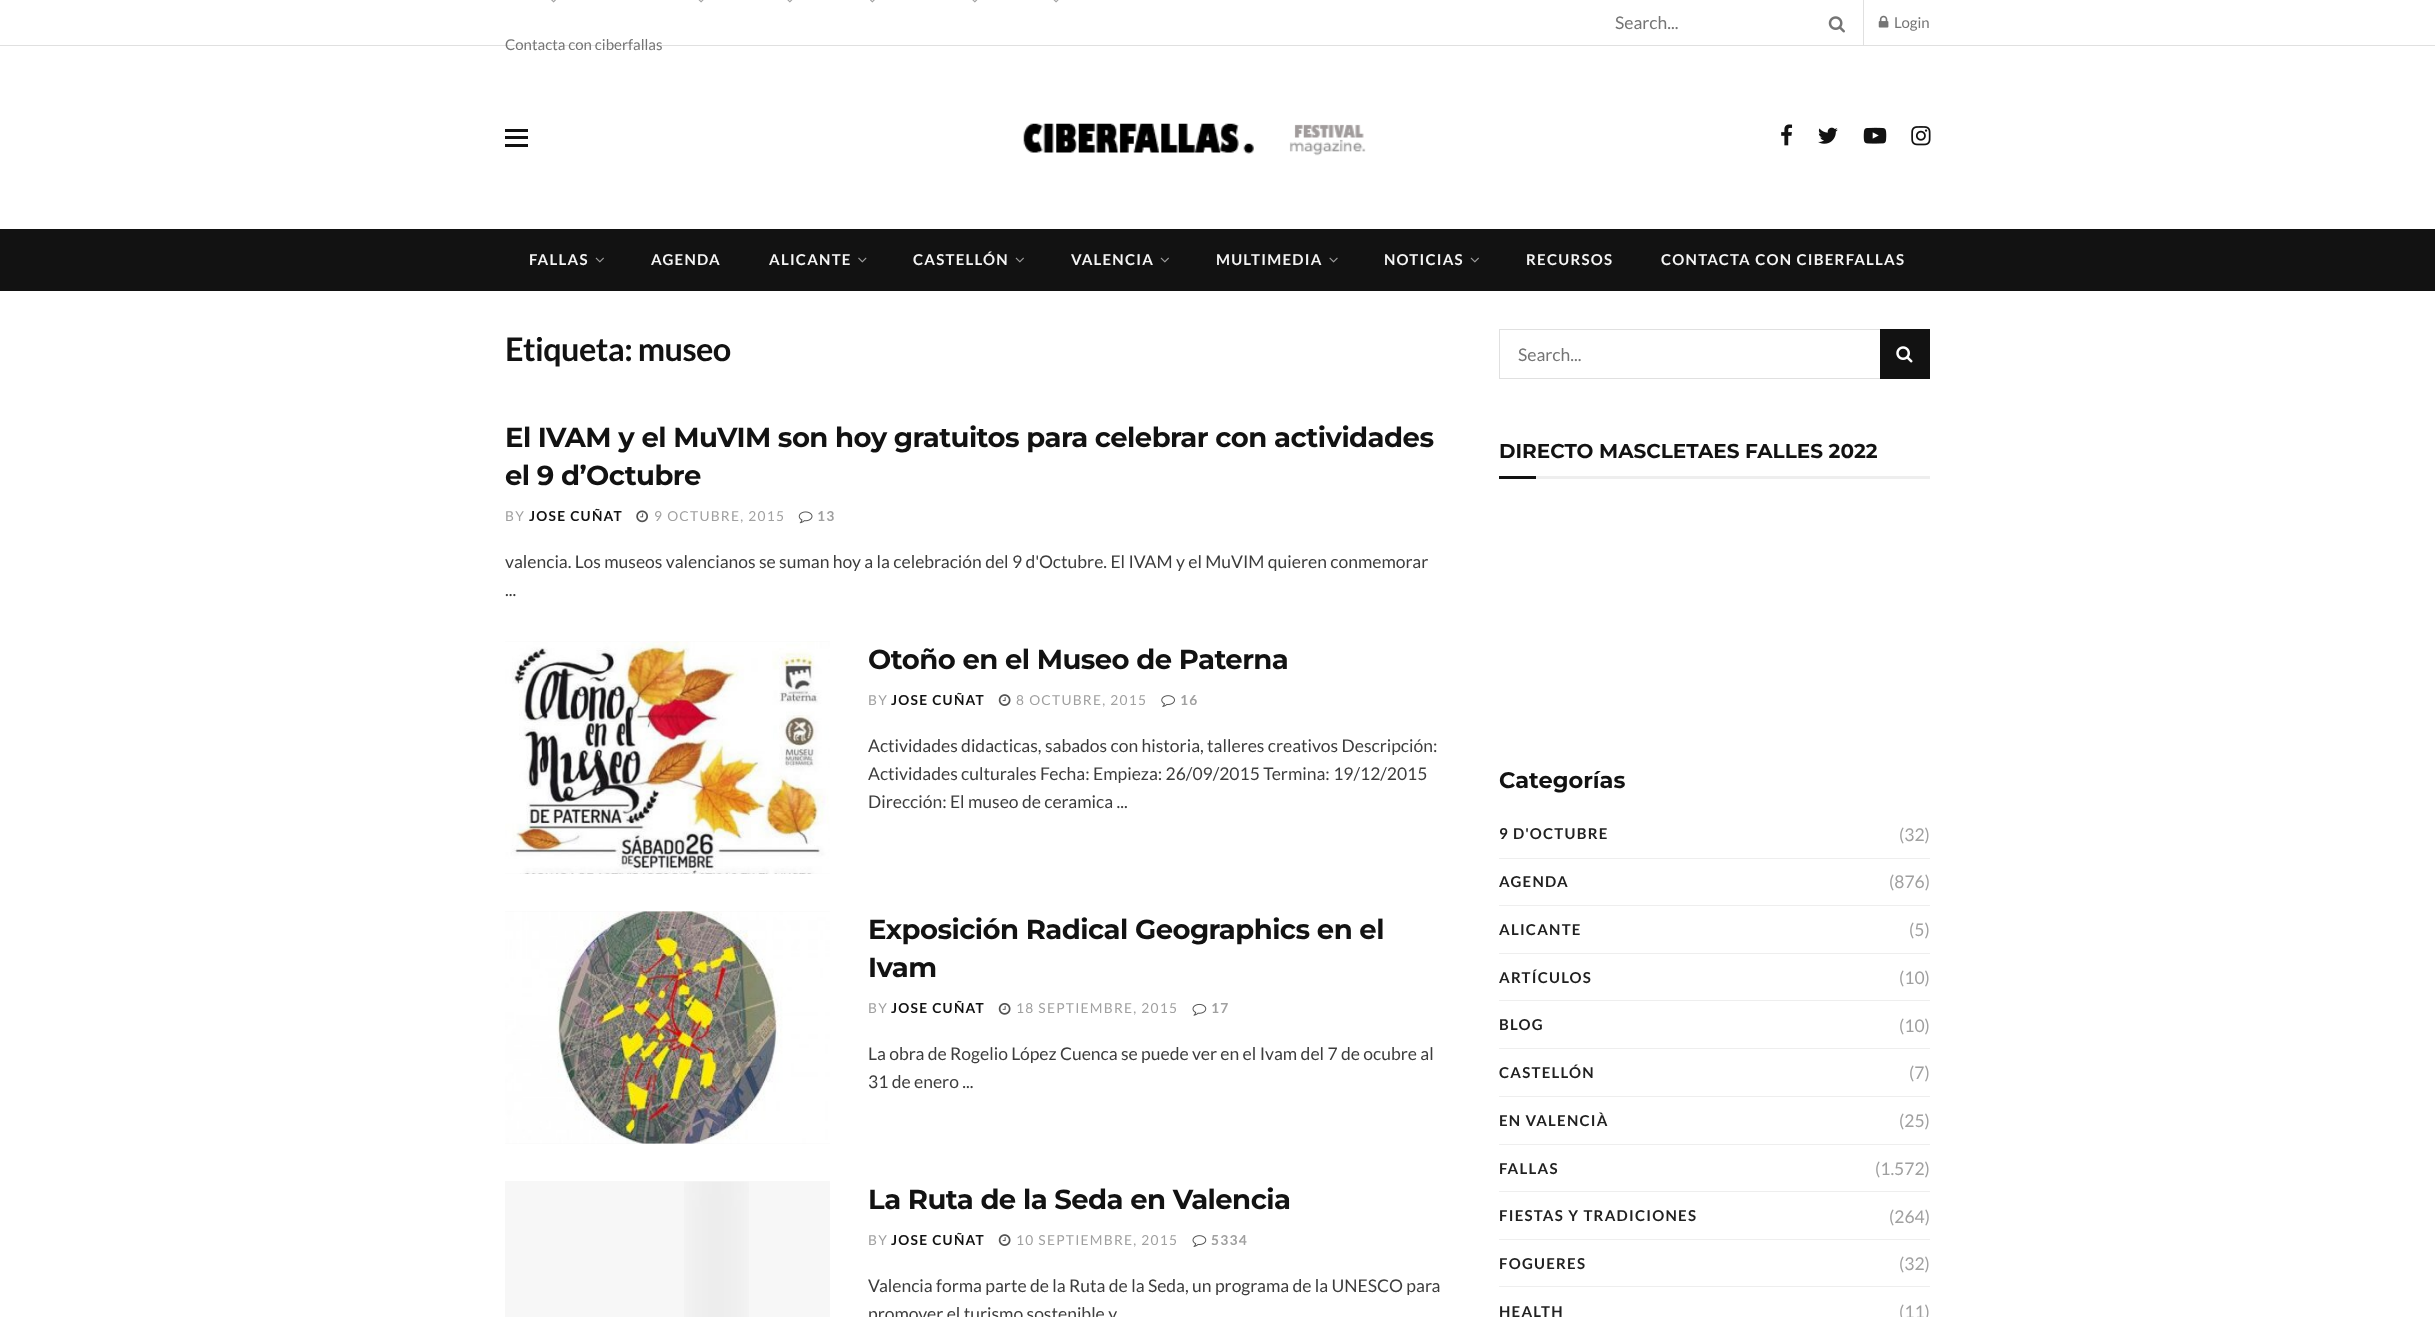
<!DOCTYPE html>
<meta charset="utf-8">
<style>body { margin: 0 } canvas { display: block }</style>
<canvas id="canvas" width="2435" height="1317"></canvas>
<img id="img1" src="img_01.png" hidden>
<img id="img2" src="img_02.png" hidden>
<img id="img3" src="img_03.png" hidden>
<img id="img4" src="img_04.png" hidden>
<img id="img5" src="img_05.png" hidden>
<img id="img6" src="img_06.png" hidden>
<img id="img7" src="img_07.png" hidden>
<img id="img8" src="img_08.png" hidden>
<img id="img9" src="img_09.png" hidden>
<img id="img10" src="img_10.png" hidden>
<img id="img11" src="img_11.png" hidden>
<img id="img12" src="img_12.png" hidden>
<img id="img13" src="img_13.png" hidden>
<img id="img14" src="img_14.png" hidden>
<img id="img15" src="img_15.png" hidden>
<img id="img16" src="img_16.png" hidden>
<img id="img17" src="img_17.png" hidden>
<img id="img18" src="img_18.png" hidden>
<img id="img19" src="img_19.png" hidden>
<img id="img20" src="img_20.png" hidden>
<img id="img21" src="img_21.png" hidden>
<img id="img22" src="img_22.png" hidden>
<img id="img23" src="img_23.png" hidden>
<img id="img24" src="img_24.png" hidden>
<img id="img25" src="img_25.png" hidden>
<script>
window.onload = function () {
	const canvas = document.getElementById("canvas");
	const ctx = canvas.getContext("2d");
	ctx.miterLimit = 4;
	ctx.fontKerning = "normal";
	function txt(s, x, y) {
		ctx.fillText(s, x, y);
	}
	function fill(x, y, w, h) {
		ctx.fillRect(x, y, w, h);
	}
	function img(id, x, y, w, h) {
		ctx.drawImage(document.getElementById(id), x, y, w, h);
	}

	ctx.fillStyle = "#FFFFFF";
	fill(0, 0, 2435, 1317);
	ctx.fillStyle = "#E0E0E0";
	fill(0, 45, 2435, 1);
	fill(1863, 0, 1, 45);
	img("img1", 1828, 16, 17, 17);
	img("img2", 1878, 15, 11, 13);
	img("img3", 551, 0, 5, 3);
	img("img4", 698, 0, 6, 3);
	img("img5", 787, 0, 6, 3);
	img("img6", 870, 0, 5, 3);
	img("img5", 972, 0, 6, 3);
	img("img4", 1053, 0, 6, 3);
	ctx.fillStyle = "#121212";
	fill(505, 129, 23, 3);
	fill(505, 136, 23, 3);
	fill(505, 144, 23, 3);
	img("img7", 1023, 123, 343, 33);
	img("img8", 1781, 124, 12, 22);
	img("img9", 1818, 127, 20, 17);
	img("img10", 1863, 127, 24, 17);
	img("img11", 1911, 126, 20, 20);
	fill(0, 229, 2435, 62);
	img("img12", 595, 257, 9, 6);
	img("img13", 858, 257, 9, 6);
	img("img12", 1015, 257, 9, 6);
	img("img12", 1160, 257, 9, 6);
	img("img14", 1329, 257, 9, 6);
	img("img12", 1470, 257, 9, 6);
	img("img15", 636, 510, 12, 13);
	img("img16", 798, 511, 15, 13);
	ctx.fillStyle = "#F7F7F7";
	fill(505, 641, 325, 233);
	img("img17", 505, 641, 325, 233);
	img("img18", 998, 694, 13, 12);
	img("img19", 1161, 695, 14, 12);
	fill(505, 911, 325, 233);
	img("img20", 505, 911, 325, 233);
	img("img21", 998, 1002, 13, 13);
	img("img22", 1192, 1003, 15, 13);
	fill(505, 1181, 325, 136);
	img("img23", 684, 1181, 65, 136);
	img("img18", 998, 1234, 13, 12);
	img("img24", 1192, 1235, 15, 12);
	ctx.strokeStyle = "#E0E0E0";
	ctx.strokeRect(1499.5, 329.5, 430, 49);
	ctx.fillStyle = "#121212";
	fill(1880, 329, 50, 50);
	img("img25", 1896, 346, 17, 17);
	ctx.fillStyle = "#EEEEEE";
	fill(1536, 476, 394, 3);
	ctx.fillStyle = "#121212";
	fill(1499, 476, 37, 3);
	ctx.fillStyle = "#EEEEEE";
	fill(1499, 858, 431, 1);
	fill(1499, 905, 431, 1);
	fill(1499, 953, 431, 1);
	fill(1499, 1000, 431, 1);
	fill(1499, 1048, 431, 1);
	fill(1499, 1096, 431, 1);
	fill(1499, 1144, 431, 1);
	fill(1499, 1191, 431, 1);
	fill(1499, 1239, 431, 1);
	fill(1499, 1286, 431, 1);
	ctx.font = "17.5px Lato";
	ctx.fillStyle = "#757575";
	txt("Search...", 1615, 29);
	ctx.font = "15px Lato";
	txt("Login", 1894, 28);
	txt("Contacta con ciberfallas", 505, 50);
	ctx.letterSpacing = "1.25px";
	ctx.font = "bold 15px Lato";
	ctx.fillStyle = "#F5F5F5";
	txt("FALLAS", 529, 265);
	txt("AGENDA", 651, 265);
	txt("ALICANTE", 769, 265);
	txt("CASTELLÓN", 913, 265);
	txt("VALENCIA", 1071, 265);
	txt("MULTIMEDIA", 1216, 265);
	txt("NOTICIAS", 1384, 265);
	txt("RECURSOS", 1526, 265);
	txt("CONTACTA CON CIBERFALLAS", 1661, 265);
	ctx.letterSpacing = "-0.6px";
	ctx.font = "bold 32.5px Lato";
	ctx.fillStyle = "#121212";
	txt("Etiqueta: museo", 505, 361);
	ctx.letterSpacing = "-0.55px";
	ctx.font = "bold 27.5px Montserrat";
	txt("El IVAM y el MuVIM son hoy gratuitos para celebrar con actividades", 505, 447);
	txt("el 9 d’Octubre", 505, 485);
	ctx.letterSpacing = "1.25px";
	ctx.font = "13.75px Lato";
	ctx.fillStyle = "#A0A0A0";
	txt("BY", 505, 521);
	ctx.font = "bold 13.75px Lato";
	ctx.fillStyle = "#121212";
	txt("JOSE CUÑAT", 529, 521);
	ctx.font = "13.75px Lato";
	ctx.fillStyle = "#A0A0A0";
	txt("9 OCTUBRE, 2015", 654, 521);
	ctx.font = "bold 13.75px Lato";
	txt("13", 817, 521);
	ctx.letterSpacing = "0px";
	ctx.font = "17.5px Lato";
	ctx.fillStyle = "#3D3D3D";
	txt("valencia. Los museos valencianos se suman hoy a la celebración del 9 d'Octubre. El IVAM y el MuVIM quieren conmemorar", 505, 568);
	txt("...", 505, 596);
	ctx.letterSpacing = "-0.55px";
	ctx.font = "bold 27.5px Montserrat";
	ctx.fillStyle = "#121212";
	txt("Otoño en el Museo de Paterna", 868, 669);
	ctx.letterSpacing = "1.25px";
	ctx.font = "13.75px Lato";
	ctx.fillStyle = "#A0A0A0";
	txt("BY", 868, 705);
	ctx.font = "bold 13.75px Lato";
	ctx.fillStyle = "#121212";
	txt("JOSE CUÑAT", 891, 705);
	ctx.font = "13.75px Lato";
	ctx.fillStyle = "#A0A0A0";
	txt("8 OCTUBRE, 2015", 1016, 705);
	ctx.font = "bold 13.75px Lato";
	txt("16", 1180, 705);
	ctx.letterSpacing = "0px";
	ctx.font = "17.5px Lato";
	ctx.fillStyle = "#3D3D3D";
	txt("Actividades didacticas, sabados con historia, talleres creativos Descripción:", 868, 752);
	txt("Actividades culturales Fecha: Empieza: 26/09/2015 Termina: 19/12/2015", 868, 780);
	txt("Dirección: El museo de ceramica ...", 868, 808);
	ctx.letterSpacing = "-0.55px";
	ctx.font = "bold 27.5px Montserrat";
	ctx.fillStyle = "#121212";
	txt("Exposición Radical Geographics en el", 868, 939);
	txt("Ivam", 868, 977);
	ctx.letterSpacing = "1.25px";
	ctx.font = "13.75px Lato";
	ctx.fillStyle = "#A0A0A0";
	txt("BY", 868, 1013);
	ctx.font = "bold 13.75px Lato";
	ctx.fillStyle = "#121212";
	txt("JOSE CUÑAT", 891, 1013);
	ctx.font = "13.75px Lato";
	ctx.fillStyle = "#A0A0A0";
	txt("18 SEPTIEMBRE, 2015", 1016, 1013);
	ctx.font = "bold 13.75px Lato";
	txt("17", 1211, 1013);
	ctx.letterSpacing = "0px";
	ctx.font = "17.5px Lato";
	ctx.fillStyle = "#3D3D3D";
	txt("La obra de Rogelio López Cuenca se puede ver en el Ivam del 7 de ocubre al", 868, 1060);
	txt("31 de enero ...", 868, 1088);
	ctx.letterSpacing = "-0.55px";
	ctx.font = "bold 27.5px Montserrat";
	ctx.fillStyle = "#121212";
	txt("La Ruta de la Seda en Valencia", 868, 1209);
	ctx.letterSpacing = "1.25px";
	ctx.font = "13.75px Lato";
	ctx.fillStyle = "#A0A0A0";
	txt("BY", 868, 1245);
	ctx.font = "bold 13.75px Lato";
	ctx.fillStyle = "#121212";
	txt("JOSE CUÑAT", 891, 1245);
	ctx.font = "13.75px Lato";
	ctx.fillStyle = "#A0A0A0";
	txt("10 SEPTIEMBRE, 2015", 1016, 1245);
	ctx.font = "bold 13.75px Lato";
	txt("5334", 1211, 1245);
	ctx.letterSpacing = "0px";
	ctx.font = "17.5px Lato";
	ctx.fillStyle = "#3D3D3D";
	txt("Valencia forma parte de la Ruta de la Seda, un programa de la UNESCO para", 868, 1292);
	txt("promover el turismo sostenible y", 868, 1320);
	ctx.fillStyle = "#757575";
	txt("Search...", 1518, 361);
	ctx.font = "bold 20px Montserrat";
	ctx.fillStyle = "#121212";
	txt("DIRECTO MASCLETAES FALLES 2022", 1499, 458);
	ctx.font = "bold 22.5px Montserrat";
	txt("Categorías", 1499, 788);
	ctx.letterSpacing = "1.25px";
	ctx.font = "bold 15px Lato";
	ctx.fillStyle = "#212121";
	txt("9 D'OCTUBRE", 1499, 839);
	ctx.letterSpacing = "0px";
	ctx.font = "17.5px Lato";
	ctx.fillStyle = "#A0A0A0";
	txt("(32)", 1899, 841);
	ctx.letterSpacing = "1.25px";
	ctx.font = "bold 15px Lato";
	ctx.fillStyle = "#212121";
	txt("AGENDA", 1499, 887);
	ctx.letterSpacing = "0px";
	ctx.font = "17.5px Lato";
	ctx.fillStyle = "#A0A0A0";
	txt("(876)", 1889, 888);
	ctx.letterSpacing = "1.25px";
	ctx.font = "bold 15px Lato";
	ctx.fillStyle = "#212121";
	txt("ALICANTE", 1499, 935);
	ctx.letterSpacing = "0px";
	ctx.font = "17.5px Lato";
	ctx.fillStyle = "#A0A0A0";
	txt("(5)", 1909, 936);
	ctx.letterSpacing = "1.25px";
	ctx.font = "bold 15px Lato";
	ctx.fillStyle = "#212121";
	txt("ARTÍCULOS", 1499, 983);
	ctx.letterSpacing = "0px";
	ctx.font = "17.5px Lato";
	ctx.fillStyle = "#A0A0A0";
	txt("(10)", 1899, 984);
	ctx.letterSpacing = "1.25px";
	ctx.font = "bold 15px Lato";
	ctx.fillStyle = "#212121";
	txt("BLOG", 1499, 1030);
	ctx.letterSpacing = "0px";
	ctx.font = "17.5px Lato";
	ctx.fillStyle = "#A0A0A0";
	txt("(10)", 1899, 1032);
	ctx.letterSpacing = "1.25px";
	ctx.font = "bold 15px Lato";
	ctx.fillStyle = "#212121";
	txt("CASTELLÓN", 1499, 1078);
	ctx.letterSpacing = "0px";
	ctx.font = "17.5px Lato";
	ctx.fillStyle = "#A0A0A0";
	txt("(7)", 1909, 1079);
	ctx.letterSpacing = "1.25px";
	ctx.font = "bold 15px Lato";
	ctx.fillStyle = "#212121";
	txt("EN VALENCIÀ", 1499, 1126);
	ctx.letterSpacing = "0px";
	ctx.font = "17.5px Lato";
	ctx.fillStyle = "#A0A0A0";
	txt("(25)", 1899, 1127);
	ctx.letterSpacing = "1.25px";
	ctx.font = "bold 15px Lato";
	ctx.fillStyle = "#212121";
	txt("FALLAS", 1499, 1174);
	ctx.letterSpacing = "0px";
	ctx.font = "17.5px Lato";
	ctx.fillStyle = "#A0A0A0";
	txt("(1.572)", 1875, 1175);
	ctx.letterSpacing = "1.25px";
	ctx.font = "bold 15px Lato";
	ctx.fillStyle = "#212121";
	txt("FIESTAS Y TRADICIONES", 1499, 1221);
	ctx.letterSpacing = "0px";
	ctx.font = "17.5px Lato";
	ctx.fillStyle = "#A0A0A0";
	txt("(264)", 1889, 1223);
	ctx.letterSpacing = "1.25px";
	ctx.font = "bold 15px Lato";
	ctx.fillStyle = "#212121";
	txt("FOGUERES", 1499, 1269);
	ctx.letterSpacing = "0px";
	ctx.font = "17.5px Lato";
	ctx.fillStyle = "#A0A0A0";
	txt("(32)", 1899, 1270);
	ctx.letterSpacing = "1.25px";
	ctx.font = "bold 15px Lato";
	ctx.fillStyle = "#212121";
	txt("HEALTH", 1499, 1317);
	ctx.letterSpacing = "0px";
	ctx.font = "17.5px Lato";
	ctx.fillStyle = "#A0A0A0";
	txt("(11)", 1899, 1318);
};
</script>
